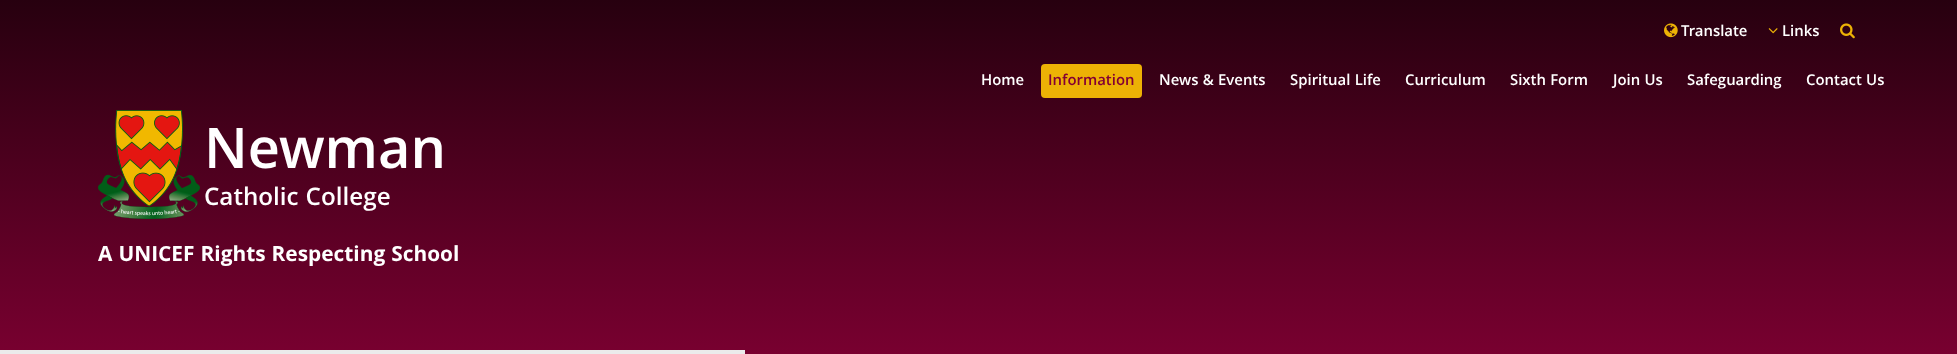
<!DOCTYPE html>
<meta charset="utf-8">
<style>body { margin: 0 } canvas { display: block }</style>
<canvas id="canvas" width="1957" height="354"></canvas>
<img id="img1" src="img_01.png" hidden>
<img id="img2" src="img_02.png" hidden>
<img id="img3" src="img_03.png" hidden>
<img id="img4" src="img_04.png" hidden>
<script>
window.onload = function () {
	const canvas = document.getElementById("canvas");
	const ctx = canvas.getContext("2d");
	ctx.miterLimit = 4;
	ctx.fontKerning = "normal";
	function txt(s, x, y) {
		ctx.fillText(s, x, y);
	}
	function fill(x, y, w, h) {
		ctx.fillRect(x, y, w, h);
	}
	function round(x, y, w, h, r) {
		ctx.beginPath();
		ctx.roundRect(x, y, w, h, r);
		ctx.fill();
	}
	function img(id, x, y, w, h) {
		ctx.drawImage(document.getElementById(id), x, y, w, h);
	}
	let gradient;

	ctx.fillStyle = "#FFFFFF";
	fill(0, 0, 1957, 354);
	gradient = ctx.createLinearGradient(979, 0, 979, 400);
	gradient.addColorStop(0, "#27000F");
	gradient.addColorStop(1, "#830034");
	ctx.fillStyle = gradient;
	fill(0, 0, 1957, 354);
	img("img1", 1664, 23, 14, 15);
	img("img2", 1768, 28, 10, 6);
	img("img3", 1840, 23, 15, 16);
	img("img4", 98, 110, 102, 109);
	ctx.fillStyle = "#EDB205";
	round(1041, 64, 101, 34, 4);
	ctx.fillStyle = "#EBEBEB";
	fill(0, 350, 745, 4);
	ctx.font = "600 16px Khula";
	ctx.fillStyle = "#FFFFFF";
	txt("Translate", 1681, 36);
	txt("Links", 1782, 36);
	ctx.font = "600 60px Khula";
	txt("Newman", 204, 168);
	ctx.font = "600 26px Khula";
	txt("Catholic College", 204, 205);
	ctx.font = "bold 22.4px Khula";
	txt("A UNICEF Rights Respecting School", 98, 261);
	ctx.font = "600 16px Khula";
	txt("Home", 981, 85);
	ctx.fillStyle = "#840033";
	txt("Information", 1048, 85);
	ctx.fillStyle = "#FFFFFF";
	txt("News & Events", 1159, 85);
	txt("Spiritual Life", 1290, 85);
	txt("Curriculum", 1405, 85);
	txt("Sixth Form", 1510, 85);
	txt("Join Us", 1613, 85);
	txt("Safeguarding", 1687, 85);
	txt("Contact Us", 1806, 85);
};
</script>
